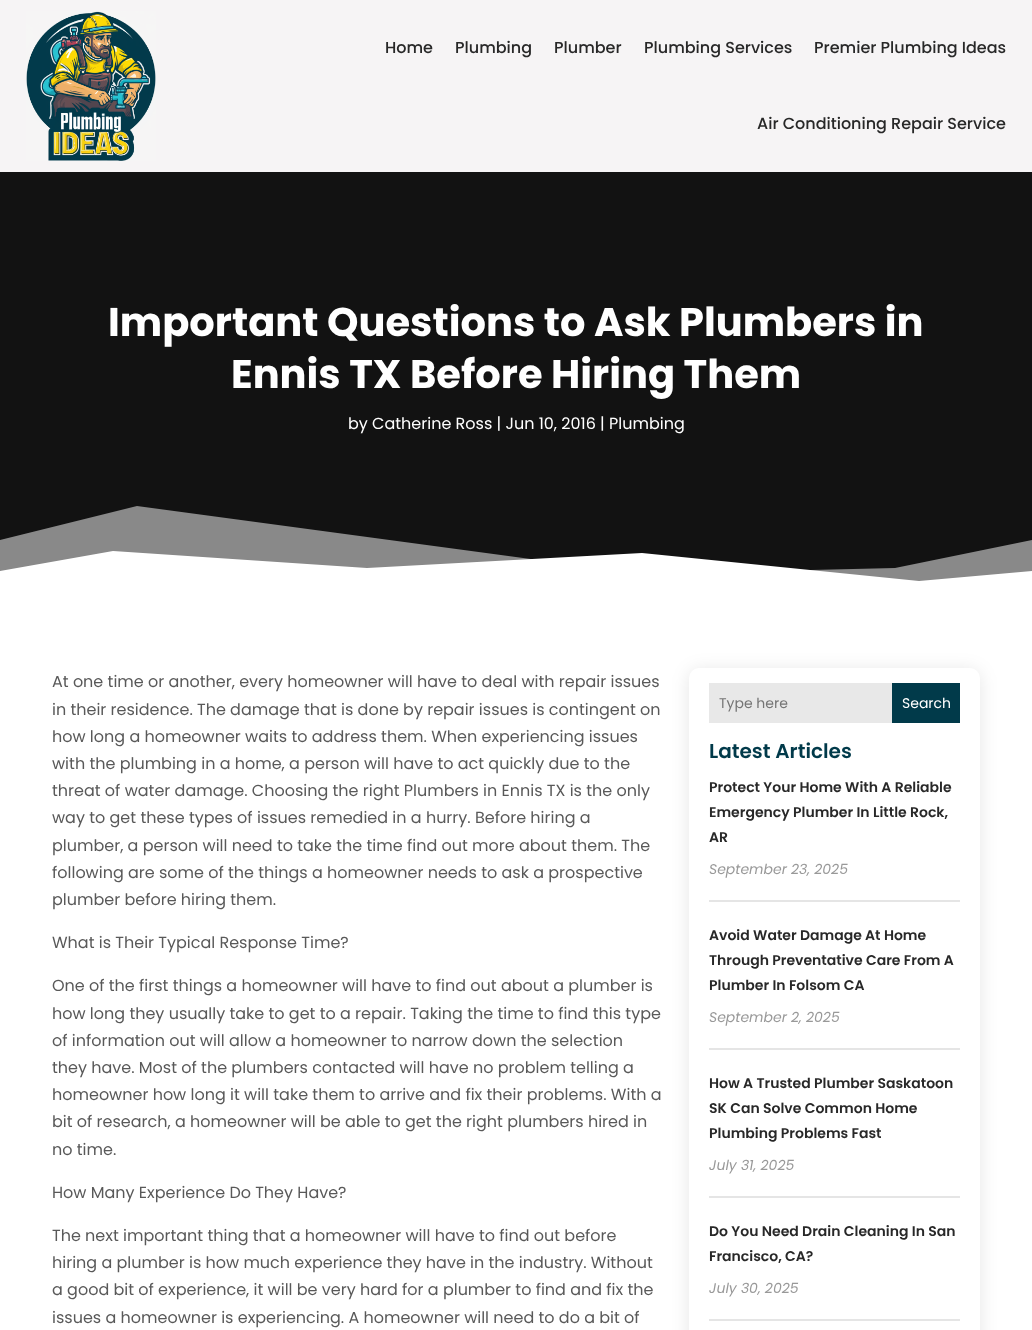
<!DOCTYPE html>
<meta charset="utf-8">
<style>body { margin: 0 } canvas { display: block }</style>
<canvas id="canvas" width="1032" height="1330"></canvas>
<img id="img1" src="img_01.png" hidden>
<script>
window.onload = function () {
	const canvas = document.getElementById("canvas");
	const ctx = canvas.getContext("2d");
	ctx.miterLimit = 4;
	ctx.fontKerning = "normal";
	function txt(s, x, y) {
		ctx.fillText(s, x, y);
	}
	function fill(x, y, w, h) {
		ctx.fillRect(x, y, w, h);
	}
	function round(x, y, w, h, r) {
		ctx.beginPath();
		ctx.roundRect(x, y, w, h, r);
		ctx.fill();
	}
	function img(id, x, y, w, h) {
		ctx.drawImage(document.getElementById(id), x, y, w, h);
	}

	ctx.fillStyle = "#FFFFFF";
	fill(0, 0, 1032, 1330);
	ctx.fillStyle = "#F6F4F5";
	fill(0, 0, 1032, 172);
	img("img1", 26, 11, 130, 150);
	ctx.fillStyle = "#121212";
	fill(0, 172, 1032, 399);
	ctx.fillStyle = "#898989";
	ctx.beginPath();
	ctx.moveTo(0, 540);
	ctx.lineTo(137, 506);
	ctx.lineTo(642, 574);
	ctx.lineTo(895, 568);
	ctx.lineTo(1032, 540);
	ctx.lineTo(1032, 606);
	ctx.lineTo(0, 606);
	ctx.closePath();
	ctx.fill();
	ctx.fillStyle = "#FFFFFF";
	ctx.beginPath();
	ctx.moveTo(0, 571);
	ctx.lineTo(113, 551);
	ctx.lineTo(367, 568);
	ctx.lineTo(642, 553);
	ctx.lineTo(919, 581);
	ctx.lineTo(1032, 571);
	ctx.lineTo(1032, 606);
	ctx.lineTo(0, 606);
	ctx.closePath();
	ctx.fill();
	ctx.fillStyle = "rgba(0, 0, 0, 0.1)";
	ctx.filter = "blur(9px)";
	ctx.beginPath();
	ctx.roundRect(689, 670, 291, 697, 10);
	ctx.fill();
	ctx.filter = "none";
	ctx.fillStyle = "#FFFFFF";
	round(689, 668, 291, 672, 10);
	ctx.fillStyle = "#E8E8E8";
	fill(709, 683, 183, 40);
	ctx.fillStyle = "#013A4A";
	fill(892, 683, 68, 40);
	ctx.fillStyle = "#E5E5E5";
	fill(709, 900, 251, 2);
	fill(709, 1048, 251, 2);
	fill(709, 1196, 251, 2);
	fill(709, 1319, 251, 2);
	ctx.font = "500 16px Poppins";
	ctx.fillStyle = "#282828";
	txt("Home", 385, 53);
	txt("Plumbing", 455, 53);
	txt("Plumber", 554, 53);
	txt("Plumbing Services", 644, 53);
	txt("Premier Plumbing Ideas", 814, 53);
	txt("Air Conditioning Repair Service", 757, 129);
	ctx.font = "bold 40px Poppins";
	ctx.fillStyle = "#FFFFFF";
	txt("Important Questions to Ask Plumbers in", 108, 336);
	txt("Ennis TX Before Hiring Them", 231, 388);
	ctx.font = "16px Poppins";
	txt("by Catherine Ross | Jun 10, 2016 | Plumbing", 348, 429);
	ctx.fillStyle = "#595959";
	txt("At one time or another, every homeowner will have to deal with repair issues", 52, 687);
	txt("in their residence. The damage that is done by repair issues is contingent on", 52, 715);
	txt("how long a homeowner waits to address them. When experiencing issues", 52, 742);
	txt("with the plumbing in a home, a person will have to act quickly due to the", 52, 769);
	txt("threat of water damage. Choosing the right Plumbers in Ennis TX is the only", 52, 796);
	txt("way to get these types of issues remedied in a hurry. Before hiring a", 52, 823);
	txt("plumber, a person will need to take the time find out more about them. The", 52, 851);
	txt("following are some of the things a homeowner needs to ask a prospective", 52, 878);
	txt("plumber before hiring them.", 52, 905);
	txt("What is Their Typical Response Time?", 52, 948);
	txt("One of the first things a homeowner will have to find out about a plumber is", 52, 991);
	txt("how long they usually take to get to a repair. Taking the time to find this type", 52, 1019);
	txt("of information out will allow a homeowner to narrow down the selection", 52, 1046);
	txt("they have. Most of the plumbers contacted will have no problem telling a", 52, 1073);
	txt("homeowner how long it will take them to arrive and fix their problems. With a", 52, 1100);
	txt("bit of research, a homeowner will be able to get the right plumbers hired in", 52, 1127);
	txt("no time.", 52, 1155);
	txt("How Many Experience Do They Have?", 52, 1198);
	txt("The next important thing that a homeowner will have to find out before", 52, 1241);
	txt("hiring a plumber is how much experience they have in the industry. Without", 52, 1268);
	txt("a good bit of experience, it will be very hard for a plumber to find and fix the", 52, 1295);
	txt("issues a homeowner is experiencing. A homeowner will need to do a bit of", 52, 1323);
	ctx.font = "14px Poppins";
	ctx.fillStyle = "#757575";
	txt("Type here", 719, 708);
	ctx.fillStyle = "#FFFFFF";
	txt("Search", 902, 708);
	ctx.font = "600 20px Poppins";
	ctx.fillStyle = "#013A4A";
	txt("Latest Articles", 709, 758);
	ctx.font = "600 14px Poppins";
	ctx.fillStyle = "#282828";
	txt("Protect Your Home With A Reliable", 709, 792);
	txt("Emergency Plumber In Little Rock,", 709, 817);
	txt("AR", 709, 842);
	ctx.font = "italic 14px Poppins";
	ctx.fillStyle = "#999999";
	txt("September 23, 2025", 709, 874);
	ctx.font = "600 14px Poppins";
	ctx.fillStyle = "#282828";
	txt("Avoid Water Damage At Home", 709, 940);
	txt("Through Preventative Care From A", 709, 965);
	txt("Plumber In Folsom CA", 709, 990);
	ctx.font = "italic 14px Poppins";
	ctx.fillStyle = "#999999";
	txt("September 2, 2025", 709, 1022);
	ctx.font = "600 14px Poppins";
	ctx.fillStyle = "#282828";
	txt("How A Trusted Plumber Saskatoon", 709, 1088);
	txt("SK Can Solve Common Home", 709, 1113);
	txt("Plumbing Problems Fast", 709, 1138);
	ctx.font = "italic 14px Poppins";
	ctx.fillStyle = "#999999";
	txt("July 31, 2025", 709, 1170);
	ctx.font = "600 14px Poppins";
	ctx.fillStyle = "#282828";
	txt("Do You Need Drain Cleaning In San", 709, 1236);
	txt("Francisco, CA?", 709, 1261);
	ctx.font = "italic 14px Poppins";
	ctx.fillStyle = "#999999";
	txt("July 30, 2025", 709, 1293);
};
</script>
